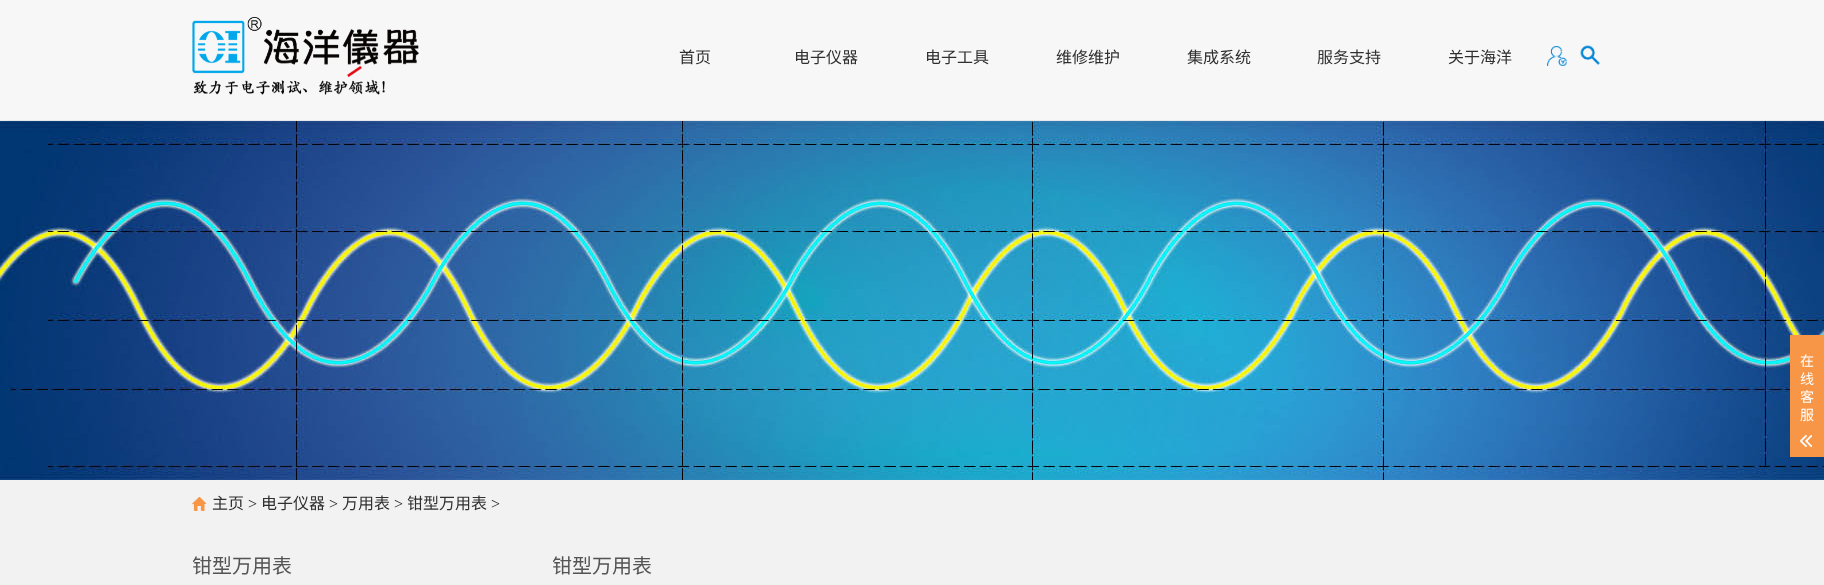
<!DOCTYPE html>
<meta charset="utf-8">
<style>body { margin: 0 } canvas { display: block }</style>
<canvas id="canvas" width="1824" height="585"></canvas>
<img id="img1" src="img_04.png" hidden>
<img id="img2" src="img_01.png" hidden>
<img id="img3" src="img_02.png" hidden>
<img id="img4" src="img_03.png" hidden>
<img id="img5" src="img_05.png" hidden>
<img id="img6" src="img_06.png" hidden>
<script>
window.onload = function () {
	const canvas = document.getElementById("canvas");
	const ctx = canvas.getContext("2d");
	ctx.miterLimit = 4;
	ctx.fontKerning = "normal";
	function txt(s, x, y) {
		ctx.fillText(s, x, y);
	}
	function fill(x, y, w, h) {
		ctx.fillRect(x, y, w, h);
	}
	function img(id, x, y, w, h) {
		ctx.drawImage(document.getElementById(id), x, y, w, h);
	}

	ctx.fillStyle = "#F3F2F2";
	fill(0, 0, 1824, 585);
	img("img1", 0, 121, 1824, 359);
	ctx.fillStyle = "rgba(0, 0, 0, 0.05)";
	ctx.filter = "blur(5px)";
	ctx.beginPath();
	ctx.rect(0, 5, 1824, 120);
	ctx.fill();
	ctx.filter = "none";
	ctx.fillStyle = "#F7F7F7";
	fill(0, 0, 1824, 120);
	img("img2", 192, 17, 227, 78);
	img("img3", 1547, 46, 20, 20);
	img("img4", 1580, 45, 20, 20);
	ctx.fillStyle = "#F79646";
	fill(1790, 335, 34, 122);
	img("img5", 1800, 435, 12, 12);
	img("img6", 192, 497, 14, 14);
	ctx.font = "16px Noto Sans CJK SC";
	ctx.fillStyle = "#2F2F2F";
	txt("首页", 679, 63);
	txt("电子仪器", 794, 63);
	txt("电子工具", 925, 63);
	txt("维修维护", 1056, 63);
	txt("集成系统", 1187, 63);
	txt("服务支持", 1317, 63);
	txt("关于海洋", 1448, 63);
	ctx.font = "14px Noto Sans CJK SC";
	ctx.fillStyle = "#FFFFFF";
	txt("在", 1800, 366);
	txt("线", 1800, 384);
	txt("客", 1800, 402);
	txt("服", 1800, 420);
	ctx.font = "16px Noto Sans CJK SC";
	ctx.fillStyle = "#2F2F2F";
	txt("主页", 212, 509);
	ctx.font = "16px Liberation Serif";
	txt(">", 248, 509);
	ctx.font = "16px Noto Sans CJK SC";
	txt("电子仪器", 261, 509);
	ctx.font = "16px Liberation Serif";
	txt(">", 329, 509);
	ctx.font = "16px Noto Sans CJK SC";
	txt("万用表", 342, 509);
	ctx.font = "16px Liberation Serif";
	txt(">", 394, 509);
	ctx.font = "16px Noto Sans CJK SC";
	txt("钳型万用表", 407, 509);
	ctx.font = "16px Liberation Serif";
	txt(">", 491, 509);
	ctx.font = "20px Noto Sans CJK SC";
	ctx.fillStyle = "#545454";
	txt("钳型万用表", 192, 573);
	txt("钳型万用表", 552, 573);
};
</script>
